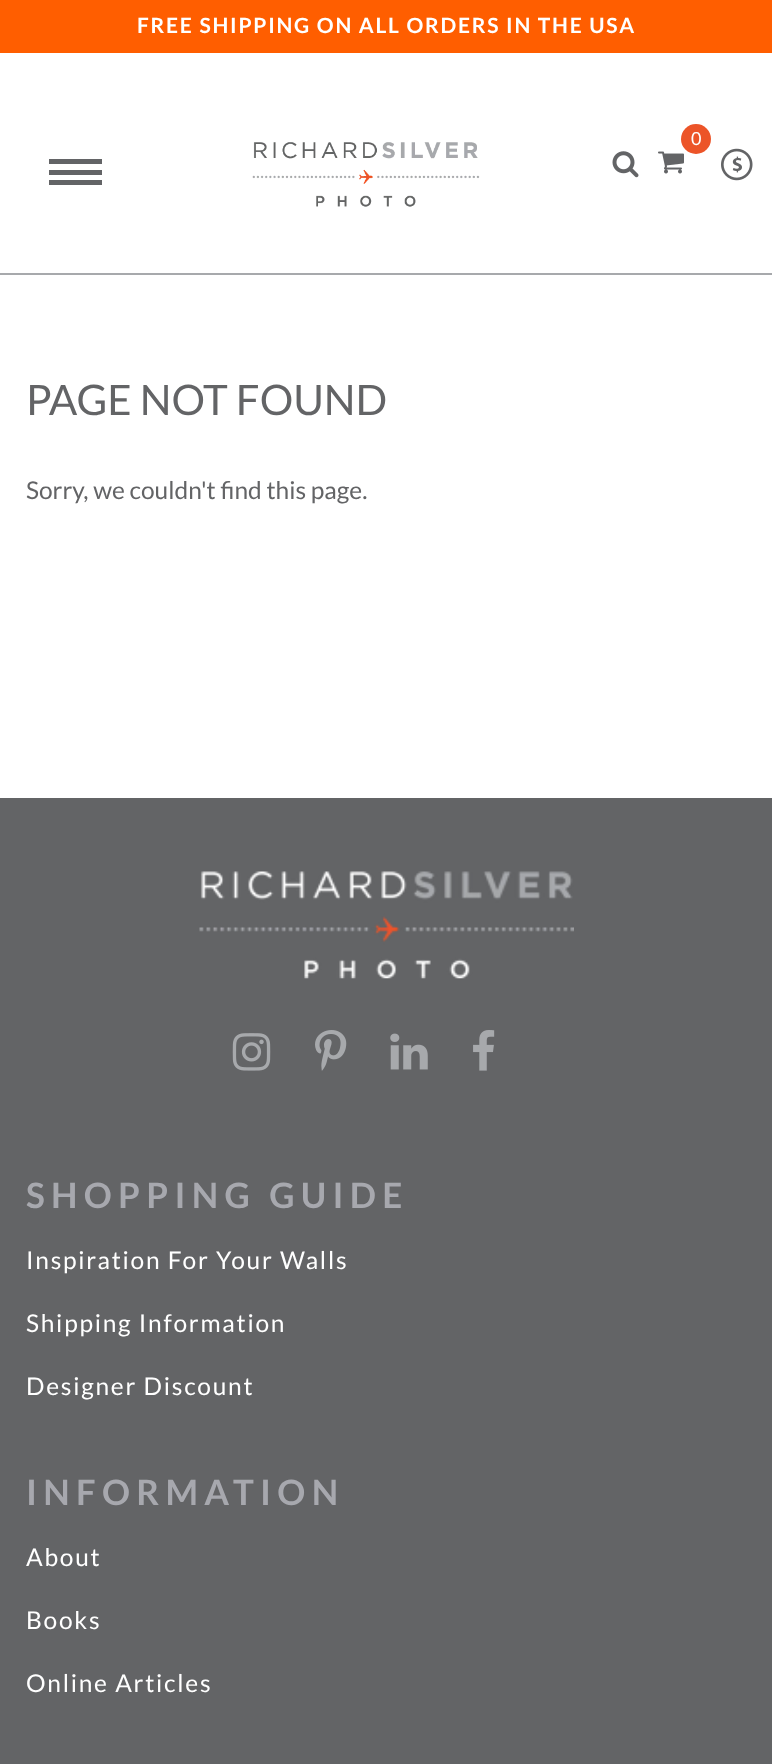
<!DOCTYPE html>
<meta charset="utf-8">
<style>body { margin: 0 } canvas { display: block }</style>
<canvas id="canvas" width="772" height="1764"></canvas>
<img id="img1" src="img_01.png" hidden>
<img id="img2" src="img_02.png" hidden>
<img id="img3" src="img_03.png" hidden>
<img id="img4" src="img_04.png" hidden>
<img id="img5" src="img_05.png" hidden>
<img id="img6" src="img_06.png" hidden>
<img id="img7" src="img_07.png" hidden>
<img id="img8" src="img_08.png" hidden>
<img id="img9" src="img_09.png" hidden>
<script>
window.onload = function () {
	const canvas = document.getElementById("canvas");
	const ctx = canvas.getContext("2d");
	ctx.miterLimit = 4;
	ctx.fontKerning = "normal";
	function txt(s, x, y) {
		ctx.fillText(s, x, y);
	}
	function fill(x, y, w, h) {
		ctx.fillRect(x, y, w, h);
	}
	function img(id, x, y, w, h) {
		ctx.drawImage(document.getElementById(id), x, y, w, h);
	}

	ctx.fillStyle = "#FFFFFF";
	fill(0, 0, 772, 1764);
	ctx.fillStyle = "#FF5E00";
	fill(0, 0, 772, 53);
	img("img1", 658, 151, 26, 23);
	ctx.fillStyle = "#EC5428";
	ctx.beginPath();
	ctx.arc(696, 139, 15, 0, Math.PI * 2);
	ctx.fill();
	img("img2", 612, 151, 27, 27);
	img("img3", 721, 148, 32, 33);
	ctx.fillStyle = "#636466";
	fill(49, 159, 53, 5);
	fill(49, 170, 53, 5);
	fill(49, 180, 53, 5);
	img("img4", 252, 142, 228, 65);
	ctx.fillStyle = "#A7A9AC";
	fill(0, 273, 772, 2);
	ctx.fillStyle = "#636466";
	fill(0, 798, 772, 966);
	img("img5", 199, 871, 375, 108);
	img("img6", 232, 1033, 39, 38);
	img("img7", 315, 1030, 32, 41);
	img("img8", 390, 1033, 38, 37);
	img("img9", 473, 1030, 22, 41);
	ctx.letterSpacing = "1.75px";
	ctx.font = "bold 21px Lato";
	ctx.fillStyle = "#FFFFFF";
	txt("FREE SHIPPING ON ALL ORDERS IN THE USA", 137, 33);
	ctx.letterSpacing = "0px";
	ctx.font = "18px Lato";
	txt("0", 691, 145);
	ctx.font = "42px Lato";
	ctx.fillStyle = "#636466";
	txt("PAGE NOT FOUND", 26, 415);
	ctx.font = "24.5px Lato";
	txt("Sorry, we couldn't find this page.", 26, 499);
	ctx.letterSpacing = "6.3px";
	ctx.font = "bold 35px Lato";
	ctx.fillStyle = "#A7A8AE";
	txt("SHOPPING GUIDE", 26, 1208);
	ctx.letterSpacing = "1.75px";
	ctx.font = "24.5px Lato";
	ctx.fillStyle = "#FFFFFF";
	txt("Inspiration For Your Walls", 26, 1269);
	txt("Shipping Information", 26, 1332);
	txt("Designer Discount", 26, 1395);
	ctx.letterSpacing = "6.3px";
	ctx.font = "bold 35px Lato";
	ctx.fillStyle = "#A7A8AE";
	txt("INFORMATION", 26, 1505);
	ctx.letterSpacing = "1.75px";
	ctx.font = "24.5px Lato";
	ctx.fillStyle = "#FFFFFF";
	txt("About", 26, 1566);
	txt("Books", 26, 1629);
	txt("Online Articles", 26, 1692);
};
</script>
